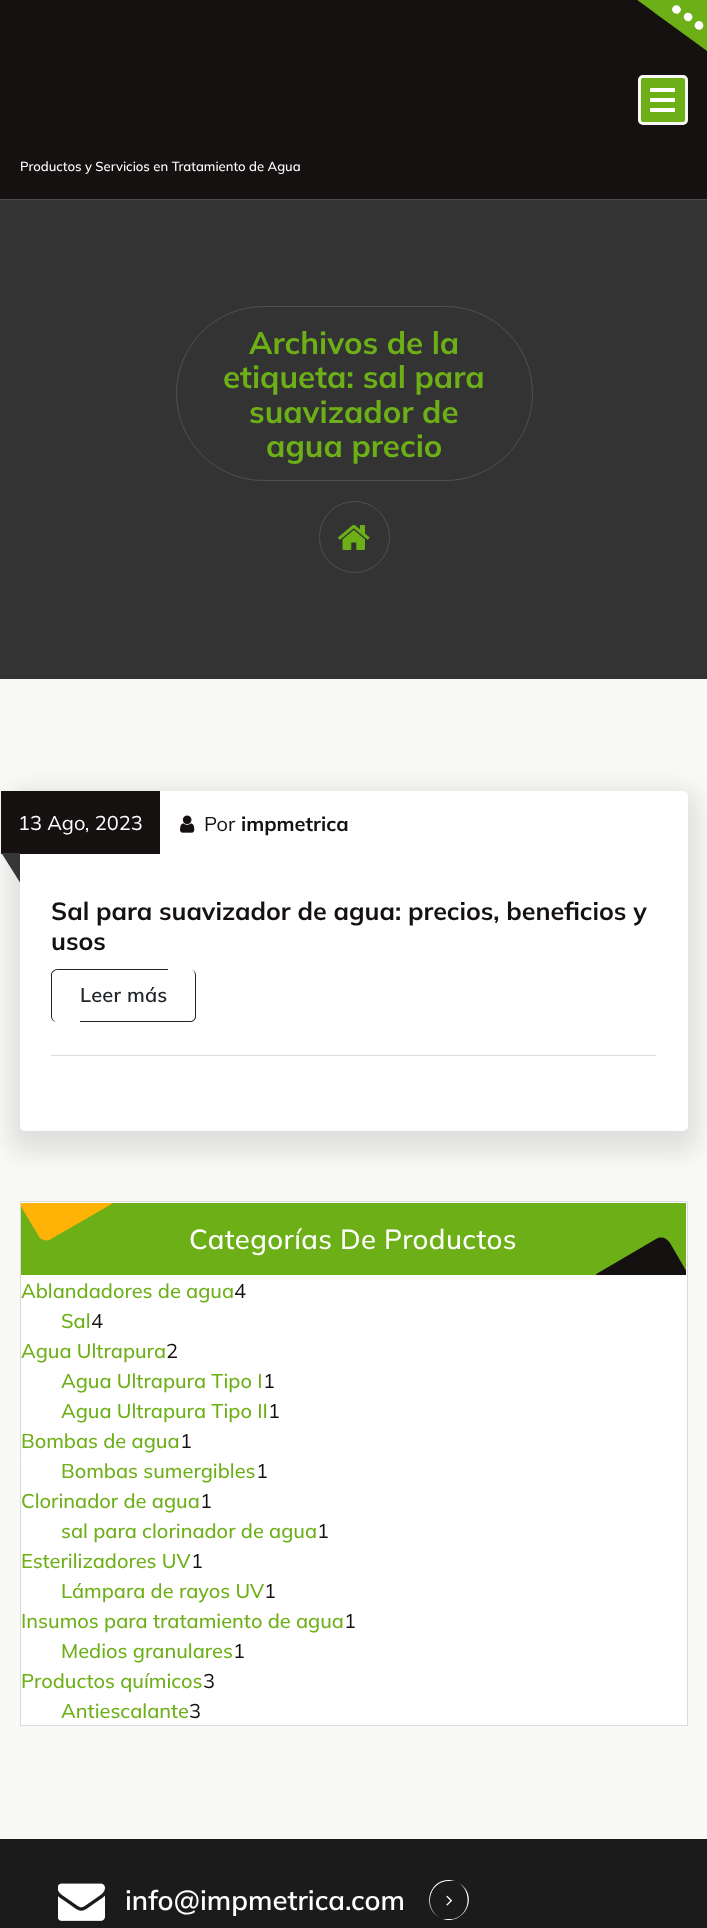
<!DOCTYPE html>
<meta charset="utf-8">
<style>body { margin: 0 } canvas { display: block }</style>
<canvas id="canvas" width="707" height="1928"></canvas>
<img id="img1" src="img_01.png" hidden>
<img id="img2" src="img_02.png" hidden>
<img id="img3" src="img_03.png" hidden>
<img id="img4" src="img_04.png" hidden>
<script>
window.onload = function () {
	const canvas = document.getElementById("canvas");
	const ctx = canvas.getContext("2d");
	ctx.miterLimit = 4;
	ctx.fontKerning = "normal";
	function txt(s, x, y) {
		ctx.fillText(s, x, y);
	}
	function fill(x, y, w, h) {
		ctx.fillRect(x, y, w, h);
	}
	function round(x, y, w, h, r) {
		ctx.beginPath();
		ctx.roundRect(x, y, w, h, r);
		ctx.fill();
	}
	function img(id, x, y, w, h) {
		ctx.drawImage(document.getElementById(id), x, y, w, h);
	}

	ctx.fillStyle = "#F9FAF7";
	fill(0, 0, 707, 1928);
	ctx.fillStyle = "#151111";
	fill(0, 0, 707, 199);
	ctx.fillStyle = "#494D52";
	fill(0, 199, 707, 1);
	ctx.fillStyle = "#6CAF17";
	ctx.beginPath();
	ctx.moveTo(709, -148);
	ctx.lineTo(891, -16);
	ctx.lineTo(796, 116);
	ctx.lineTo(614, -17);
	ctx.closePath();
	ctx.fill();
	ctx.beginPath();
	ctx.moveTo(655, 13);
	ctx.lineTo(674, -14);
	ctx.lineTo(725, 22);
	ctx.lineTo(706, 49);
	ctx.closePath();
	ctx.fill();
	ctx.fillStyle = "#FFFFFF";
	ctx.beginPath();
	ctx.moveTo(684.5, 14.5);
	ctx.bezierCurveTo(688, 10, 695, 15, 691.5, 19.5);
	ctx.bezierCurveTo(688.5, 24, 681.5, 19, 684.5, 14.5);
	ctx.closePath();
	ctx.moveTo(673, 7);
	ctx.bezierCurveTo(676, 2.5, 683.5, 7.5, 680, 12);
	ctx.bezierCurveTo(677, 16.5, 669.5, 11.5, 673, 7);
	ctx.closePath();
	ctx.moveTo(695.5, 23);
	ctx.bezierCurveTo(698.5, 18, 706, 23, 702.5, 28);
	ctx.bezierCurveTo(699.5, 32.5, 692, 27.5, 695.5, 23);
	ctx.closePath();
	ctx.fill();
	ctx.fillStyle = "#6CAF17";
	ctx.beginPath();
	ctx.roundRect(639.5, 76.5, 47, 47, 3.5);
	ctx.fill();
	ctx.strokeStyle = "#F9FAF7";
	ctx.lineWidth = 3;
	ctx.stroke();
	ctx.fillStyle = "#FFFFFF";
	fill(650, 88, 25, 4);
	fill(650, 98, 25, 4);
	fill(650, 108, 25, 4);
	ctx.fillStyle = "#333333";
	fill(0, 200, 707, 479);
	ctx.beginPath();
	ctx.roundRect(176.5, 306.5, 356, 174, 87);
	ctx.strokeStyle = "#4D5154";
	ctx.lineWidth = 1;
	ctx.stroke();
	ctx.beginPath();
	ctx.roundRect(319.5, 501.5, 70, 71, 35);
	ctx.stroke();
	img("img1", 338, 525, 32, 25);
	ctx.fillStyle = "rgba(0, 0, 0, 0.1)";
	ctx.filter = "blur(12.5px)";
	ctx.beginPath();
	ctx.roundRect(9, 790, 690, 363, 16);
	ctx.fill();
	ctx.filter = "none";
	ctx.fillStyle = "#FFFFFF";
	round(20, 791, 668, 340, 5);
	ctx.fillStyle = "#151111";
	fill(1, 791, 159, 63);
	ctx.fillStyle = "#353638";
	ctx.beginPath();
	ctx.moveTo(20, 853);
	ctx.lineTo(1.5, 853);
	ctx.lineTo(20, 882.5);
	ctx.closePath();
	ctx.fill();
	img("img2", 180, 815, 15, 18);
	ctx.fillStyle = "#DDDDDD";
	fill(51, 1055, 605, 1);
	ctx.fillStyle = "#212529";
	ctx.beginPath();
	ctx.moveTo(58, 969);
	ctx.lineTo(168, 969);
	ctx.lineTo(168, 1022);
	ctx.lineTo(58, 1022);
	ctx.bezierCurveTo(54, 1022, 51, 1020, 51, 1016);
	ctx.lineTo(51, 975);
	ctx.bezierCurveTo(51, 972, 54, 969, 58, 969);
	ctx.closePath();
	ctx.moveTo(58, 970);
	ctx.lineTo(168, 970);
	ctx.lineTo(168, 1022);
	ctx.lineTo(58, 1022);
	ctx.bezierCurveTo(55, 1022, 52, 1020, 52, 1016);
	ctx.lineTo(52, 975);
	ctx.bezierCurveTo(52, 972, 55, 970, 58, 970);
	ctx.closePath();
	ctx.fill("evenodd");
	ctx.beginPath();
	ctx.moveTo(80, 969);
	ctx.lineTo(190, 969);
	ctx.bezierCurveTo(193, 969, 196, 972, 196, 975);
	ctx.lineTo(196, 1016);
	ctx.bezierCurveTo(196, 1020, 193, 1022, 190, 1022);
	ctx.lineTo(80, 1022);
	ctx.closePath();
	ctx.moveTo(80, 969);
	ctx.lineTo(190, 969);
	ctx.bezierCurveTo(193, 969, 195, 972, 195, 975);
	ctx.lineTo(195, 1016);
	ctx.bezierCurveTo(195, 1019, 193, 1021, 190, 1021);
	ctx.lineTo(80, 1021);
	ctx.closePath();
	ctx.fill("evenodd");
	ctx.fillStyle = "#FFFFFF";
	ctx.beginPath();
	ctx.rect(20.5, 1201.5, 667, 524);
	ctx.fill();
	ctx.strokeStyle = "#DADADA";
	ctx.stroke();
	ctx.fillStyle = "#6CAF17";
	fill(21, 1203, 665, 72);
	ctx.save();
	ctx.beginPath();
	ctx.rect(21, 1203, 665, 72);
	ctx.clip();
	ctx.fillStyle = "#FFB307";
	ctx.beginPath();
	ctx.moveTo(20, 1185);
	ctx.lineTo(79, 1151);
	ctx.bezierCurveTo(83, 1148, 90, 1150, 92, 1155);
	ctx.lineTo(114, 1191);
	ctx.bezierCurveTo(116, 1196, 115, 1202, 110, 1205);
	ctx.lineTo(51, 1239);
	ctx.bezierCurveTo(47, 1242, 40, 1240, 38, 1235);
	ctx.lineTo(16, 1198);
	ctx.bezierCurveTo(14, 1194, 15, 1188, 20, 1185);
	ctx.closePath();
	ctx.fill();
	ctx.fillStyle = "#151111";
	ctx.beginPath();
	ctx.moveTo(598, 1273);
	ctx.lineTo(656, 1239);
	ctx.bezierCurveTo(661, 1236, 667, 1238, 670, 1243);
	ctx.lineTo(691, 1279);
	ctx.bezierCurveTo(694, 1284, 692, 1290, 687, 1293);
	ctx.lineTo(629, 1327);
	ctx.bezierCurveTo(624, 1330, 618, 1328, 615, 1323);
	ctx.lineTo(594, 1286);
	ctx.bezierCurveTo(591, 1282, 593, 1276, 598, 1273);
	ctx.closePath();
	ctx.fill();
	ctx.restore();
	ctx.fillStyle = "#1B1B1B";
	fill(0, 1839, 707, 89);
	img("img3", 58, 1883, 47, 38);
	ctx.fillStyle = "#FFFFFF";
	ctx.beginPath();
	ctx.moveTo(449, 1880);
	ctx.lineTo(455, 1881);
	ctx.lineTo(449, 1881);
	ctx.bezierCurveTo(428, 1881, 423, 1910, 441, 1918);
	ctx.bezierCurveTo(422, 1910, 427, 1880, 449, 1880);
	ctx.closePath();
	ctx.moveTo(444, 1919);
	ctx.lineTo(441, 1918);
	ctx.bezierCurveTo(444, 1919, 448, 1920, 451, 1920);
	ctx.closePath();
	ctx.fill("evenodd");
	ctx.beginPath();
	ctx.moveTo(449, 1880);
	ctx.bezierCurveTo(471, 1880, 475, 1914, 453, 1919);
	ctx.lineTo(443, 1919);
	ctx.bezierCurveTo(462, 1925, 478, 1901, 463, 1886);
	ctx.bezierCurveTo(459, 1882, 454, 1880, 449, 1880);
	ctx.closePath();
	ctx.fill();
	img("img4", 446, 1895, 6, 11);
	ctx.font = "500 13.1px Mulish";
	txt("Productos y Servicios en Tratamiento de Agua", 20, 171);
	ctx.font = "bold 31.25px Mulish";
	ctx.fillStyle = "#6CAF17";
	txt("Archivos de la", 249, 354);
	txt("etiqueta: sal para", 223, 388);
	txt("suavizador de", 249, 423);
	txt("agua precio", 266, 457);
	ctx.font = "20px Mulish";
	ctx.fillStyle = "#FFFFFF";
	txt("13 Ago, 2023", 18, 830);
	ctx.fillStyle = "#151111";
	txt("Por", 204, 831);
	ctx.font = "bold 20px Mulish";
	txt("impmetrica", 241, 831);
	ctx.font = "bold 25px Mulish";
	txt("Sal para suavizador de agua: precios, beneficios y", 51, 920);
	txt("usos", 51, 950);
	ctx.letterSpacing = "0.25px";
	ctx.font = "600 20px Mulish";
	ctx.fillStyle = "#212529";
	txt("Leer más", 80, 1002);
	ctx.letterSpacing = "0.4px";
	ctx.font = "500 27.5px Mulish";
	ctx.fillStyle = "#FFFFFF";
	txt("Categorías De Productos", 189, 1249);
	ctx.letterSpacing = "0px";
	ctx.font = "500 20px Mulish";
	ctx.fillStyle = "#6CAF17";
	txt("Ablandadores de agua", 21, 1298);
	ctx.font = "20px Mulish";
	ctx.fillStyle = "#151111";
	txt("4", 234, 1298);
	ctx.font = "500 20px Mulish";
	ctx.fillStyle = "#6CAF17";
	txt("Sal", 61, 1328);
	ctx.font = "20px Mulish";
	ctx.fillStyle = "#151111";
	txt("4", 91, 1328);
	ctx.font = "500 20px Mulish";
	ctx.fillStyle = "#6CAF17";
	txt("Agua Ultrapura", 21, 1358);
	ctx.font = "20px Mulish";
	ctx.fillStyle = "#151111";
	txt("2", 166, 1358);
	ctx.font = "500 20px Mulish";
	ctx.fillStyle = "#6CAF17";
	txt("Agua Ultrapura Tipo I", 61, 1388);
	ctx.font = "20px Mulish";
	ctx.fillStyle = "#151111";
	txt("1", 263, 1388);
	ctx.font = "500 20px Mulish";
	ctx.fillStyle = "#6CAF17";
	txt("Agua Ultrapura Tipo II", 61, 1418);
	ctx.font = "20px Mulish";
	ctx.fillStyle = "#151111";
	txt("1", 268, 1418);
	ctx.font = "500 20px Mulish";
	ctx.fillStyle = "#6CAF17";
	txt("Bombas de agua", 21, 1448);
	ctx.font = "20px Mulish";
	ctx.fillStyle = "#151111";
	txt("1", 180, 1448);
	ctx.font = "500 20px Mulish";
	ctx.fillStyle = "#6CAF17";
	txt("Bombas sumergibles", 61, 1478);
	ctx.font = "20px Mulish";
	ctx.fillStyle = "#151111";
	txt("1", 256, 1478);
	ctx.font = "500 20px Mulish";
	ctx.fillStyle = "#6CAF17";
	txt("Clorinador de agua", 21, 1508);
	ctx.font = "20px Mulish";
	ctx.fillStyle = "#151111";
	txt("1", 200, 1508);
	ctx.font = "500 20px Mulish";
	ctx.fillStyle = "#6CAF17";
	txt("sal para clorinador de agua", 61, 1538);
	ctx.font = "20px Mulish";
	ctx.fillStyle = "#151111";
	txt("1", 317, 1538);
	ctx.font = "500 20px Mulish";
	ctx.fillStyle = "#6CAF17";
	txt("Esterilizadores UV", 21, 1568);
	ctx.font = "20px Mulish";
	ctx.fillStyle = "#151111";
	txt("1", 191, 1568);
	ctx.font = "500 20px Mulish";
	ctx.fillStyle = "#6CAF17";
	txt("Lámpara de rayos UV", 61, 1598);
	ctx.font = "20px Mulish";
	ctx.fillStyle = "#151111";
	txt("1", 264, 1598);
	ctx.font = "500 20px Mulish";
	ctx.fillStyle = "#6CAF17";
	txt("Insumos para tratamiento de agua", 21, 1628);
	ctx.font = "20px Mulish";
	ctx.fillStyle = "#151111";
	txt("1", 344, 1628);
	ctx.font = "500 20px Mulish";
	ctx.fillStyle = "#6CAF17";
	txt("Medios granulares", 61, 1658);
	ctx.font = "20px Mulish";
	ctx.fillStyle = "#151111";
	txt("1", 233, 1658);
	ctx.font = "500 20px Mulish";
	ctx.fillStyle = "#6CAF17";
	txt("Productos químicos", 21, 1688);
	ctx.font = "20px Mulish";
	ctx.fillStyle = "#151111";
	txt("3", 203, 1688);
	ctx.font = "500 20px Mulish";
	ctx.fillStyle = "#6CAF17";
	txt("Antiescalante", 61, 1718);
	ctx.font = "20px Mulish";
	ctx.fillStyle = "#151111";
	txt("3", 189, 1718);
	ctx.font = "600 27.5px Mulish";
	ctx.fillStyle = "#FFFFFF";
	txt("info@impmetrica.com", 125, 1910);
};
</script>
